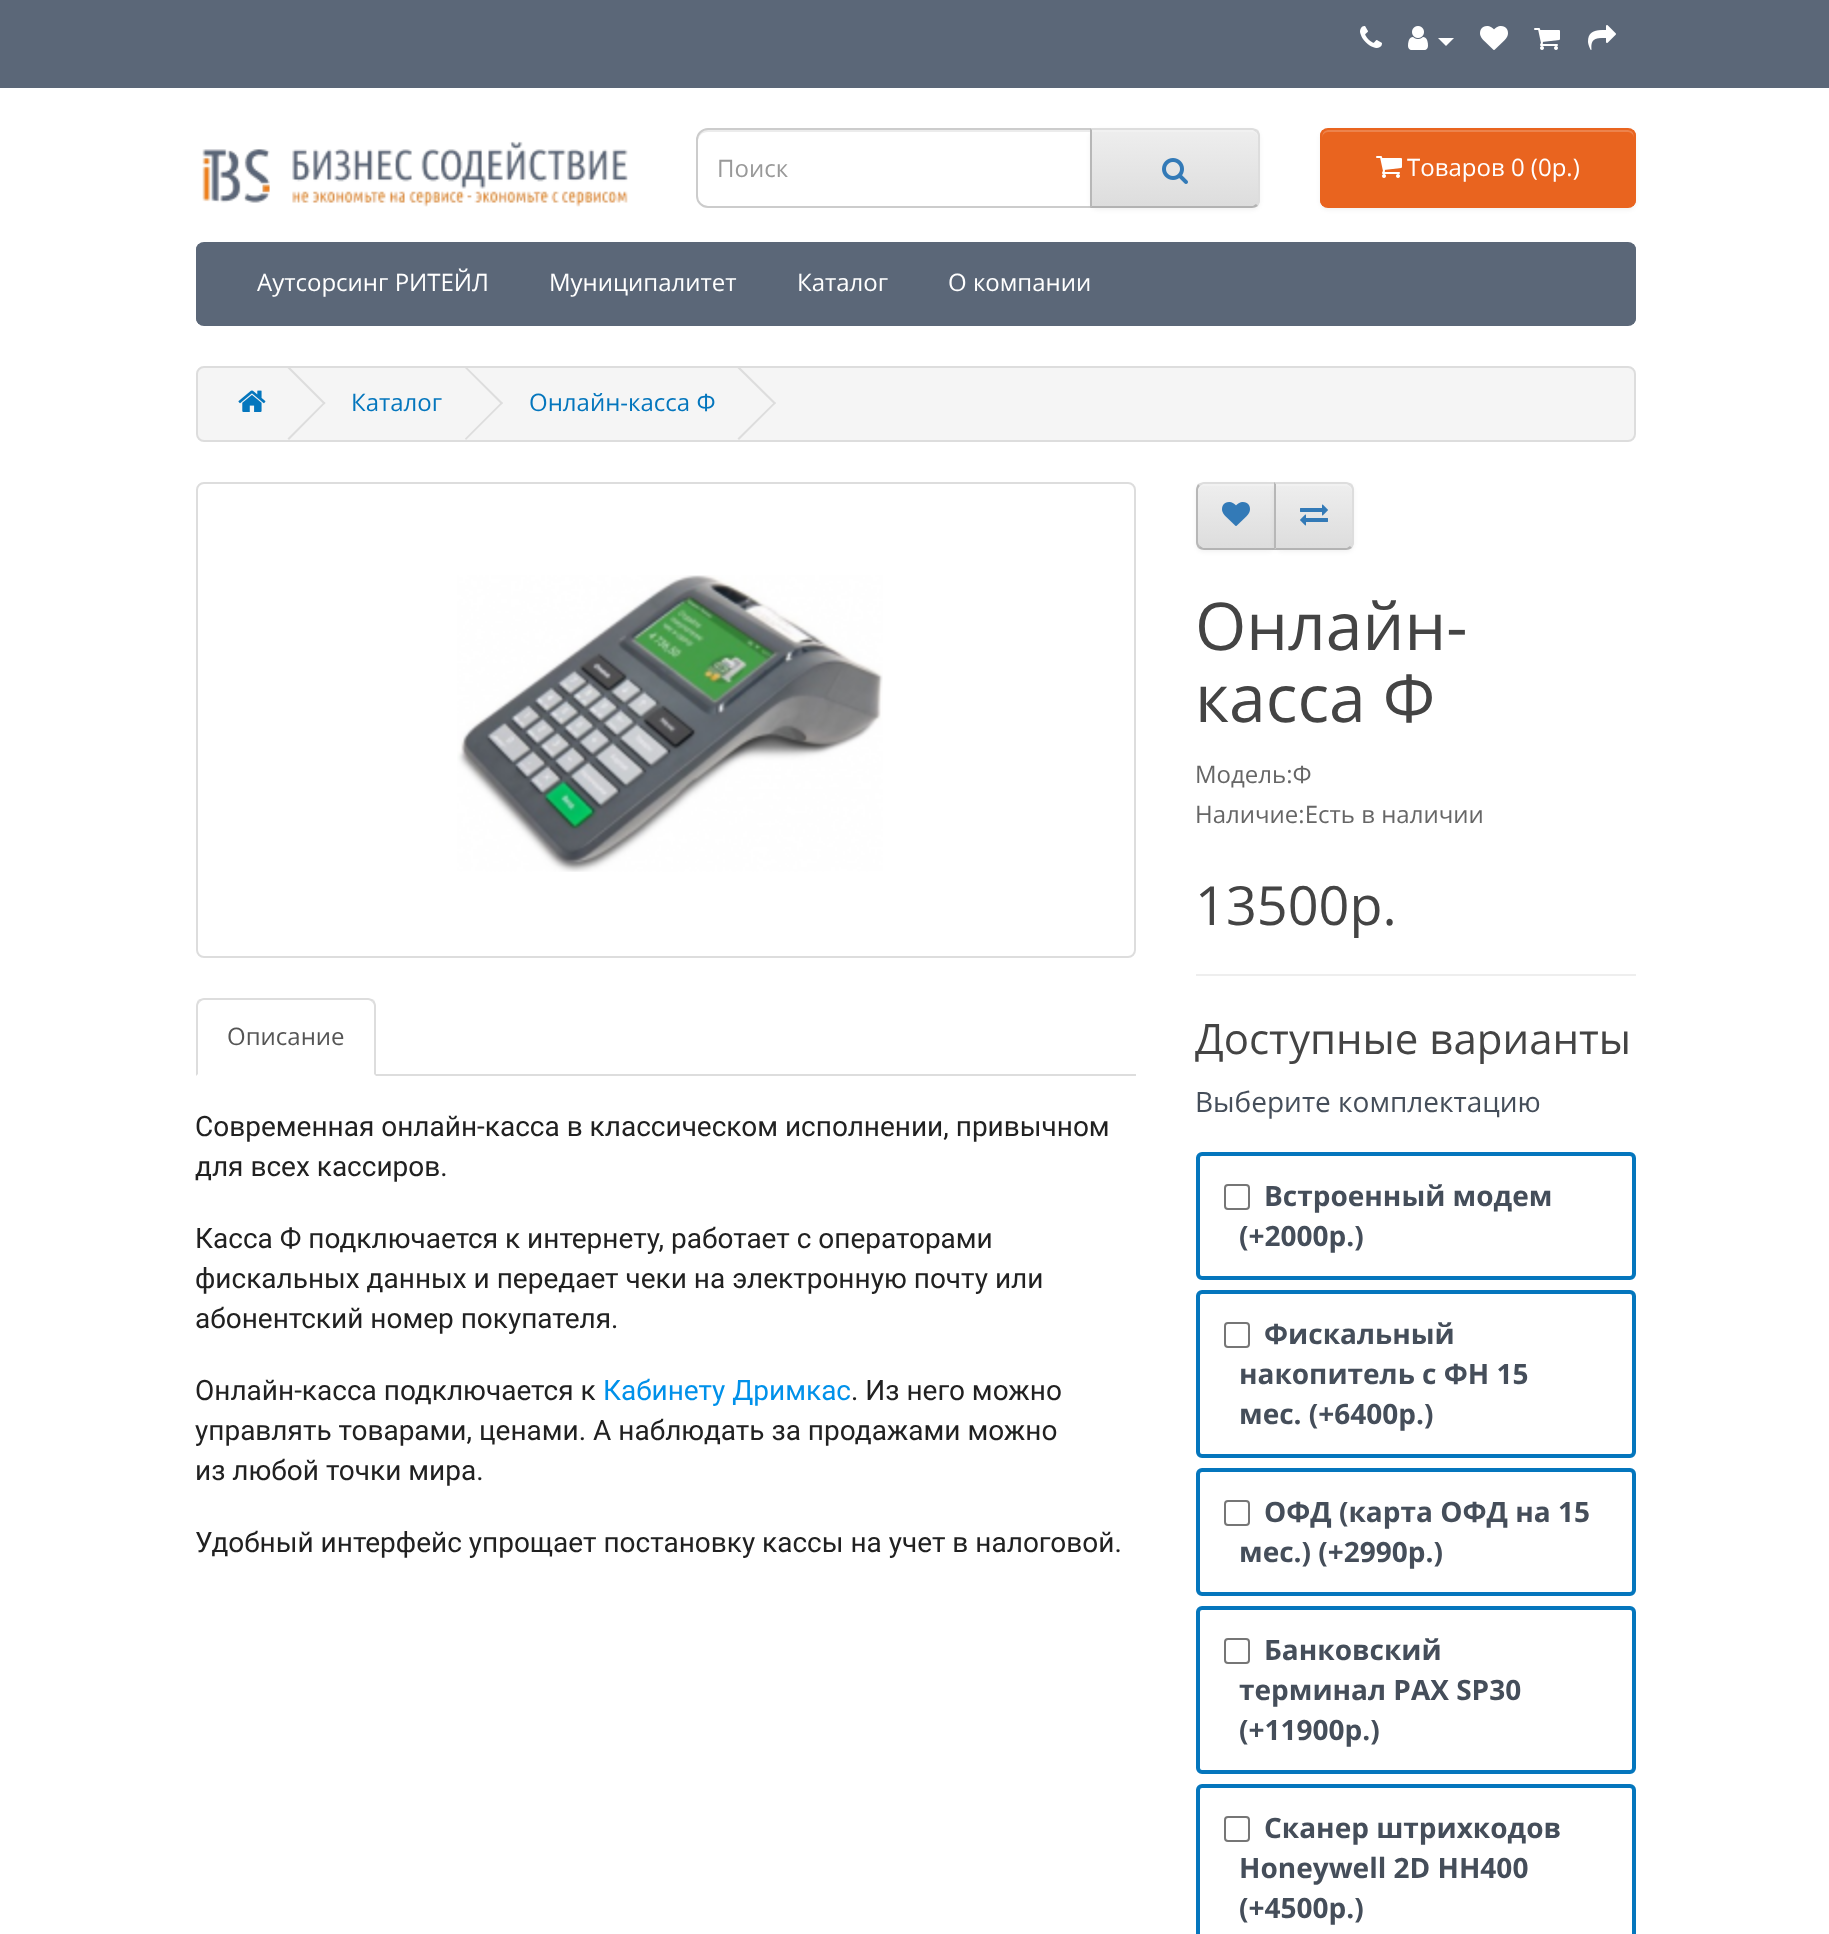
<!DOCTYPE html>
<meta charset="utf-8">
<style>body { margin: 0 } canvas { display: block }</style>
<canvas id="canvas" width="1829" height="1934"></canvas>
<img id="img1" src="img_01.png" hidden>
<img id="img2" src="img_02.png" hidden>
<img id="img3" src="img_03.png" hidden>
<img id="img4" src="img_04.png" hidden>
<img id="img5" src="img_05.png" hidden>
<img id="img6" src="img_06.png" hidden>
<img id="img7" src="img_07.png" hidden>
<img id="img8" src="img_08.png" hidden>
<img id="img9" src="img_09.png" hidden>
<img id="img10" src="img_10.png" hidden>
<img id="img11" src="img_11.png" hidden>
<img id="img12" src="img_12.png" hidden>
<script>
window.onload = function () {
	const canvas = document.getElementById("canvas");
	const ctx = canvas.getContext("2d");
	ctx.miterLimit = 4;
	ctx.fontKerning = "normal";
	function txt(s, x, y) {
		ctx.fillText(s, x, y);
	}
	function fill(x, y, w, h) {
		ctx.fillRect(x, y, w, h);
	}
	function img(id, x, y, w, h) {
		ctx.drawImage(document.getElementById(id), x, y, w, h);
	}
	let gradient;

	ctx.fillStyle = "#FFFFFF";
	fill(0, 0, 1829, 1934);
	ctx.fillStyle = "#5B6778";
	fill(0, 0, 1829, 88);
	img("img1", 1360, 26, 22, 22);
	img("img2", 1408, 26, 20, 24);
	ctx.fillStyle = "#FFFFFF";
	ctx.beginPath();
	ctx.moveTo(1438, 38);
	ctx.lineTo(1454, 38);
	ctx.lineTo(1446, 46);
	ctx.closePath();
	ctx.fill();
	img("img3", 1480, 26, 28, 24);
	img("img4", 1534, 28, 26, 22);
	img("img5", 1588, 25, 28, 25);
	img("img6", 202, 141, 426, 66);
	ctx.fillStyle = "#ECECEC";
	ctx.beginPath();
	ctx.moveTo(708, 132);
	ctx.lineTo(1090, 132);
	ctx.lineTo(1090, 130);
	ctx.lineTo(706, 130);
	ctx.bezierCurveTo(700, 131, 698, 137, 698, 142);
	ctx.bezierCurveTo(698, 136, 702, 132, 708, 132);
	ctx.closePath();
	ctx.fill();
	ctx.beginPath();
	ctx.roundRect(697, 129, 394, 78, [11, 0, 0, 11]);
	ctx.strokeStyle = "#CCCCCC";
	ctx.lineWidth = 2;
	ctx.stroke();
	ctx.fillStyle = "rgba(0, 0, 0, 0.05)";
	ctx.filter = "blur(2px)";
	ctx.beginPath();
	ctx.roundRect(1090, 130, 170, 80, 8);
	ctx.fill();
	ctx.filter = "none";
	ctx.save();
	ctx.beginPath();
	ctx.roundRect(1090, 128, 170, 80, [0, 8, 8, 0]);
	ctx.clip();
	gradient = ctx.createLinearGradient(1175, 130, 1175, 206);
	gradient.addColorStop(0, "#EEEEEE");
	gradient.addColorStop(1, "#DDDDDD");
	ctx.fillStyle = gradient;
	fill(1092, 130, 168, 76);
	ctx.restore();
	ctx.fillStyle = "#F1F1F1";
	ctx.beginPath();
	ctx.moveTo(1092, 132);
	ctx.lineTo(1252, 132);
	ctx.bezierCurveTo(1255, 132, 1258, 135, 1258, 138);
	ctx.lineTo(1258, 136);
	ctx.bezierCurveTo(1258, 133, 1255, 130, 1252, 130);
	ctx.lineTo(1092, 130);
	ctx.closePath();
	ctx.fill();
	ctx.fillStyle = "#DDDDDD";
	ctx.beginPath();
	ctx.moveTo(1090, 128);
	ctx.lineTo(1092, 130);
	ctx.lineTo(1253, 130);
	ctx.lineTo(1256, 132);
	ctx.lineTo(1258, 130);
	ctx.bezierCurveTo(1256, 129, 1254, 128, 1252, 128);
	ctx.closePath();
	ctx.fill();
	ctx.beginPath();
	ctx.moveTo(1260, 200);
	ctx.lineTo(1260, 136);
	ctx.bezierCurveTo(1260, 134, 1259, 132, 1258, 130);
	ctx.lineTo(1256, 132);
	ctx.bezierCurveTo(1257, 133, 1258, 134, 1258, 136);
	ctx.lineTo(1258, 200);
	ctx.bezierCurveTo(1258, 202, 1257, 203, 1256, 204);
	ctx.lineTo(1258, 206);
	ctx.bezierCurveTo(1259, 204, 1260, 202, 1260, 200);
	ctx.closePath();
	ctx.fill();
	ctx.fillStyle = "#B3B3B3";
	ctx.beginPath();
	ctx.moveTo(1252, 208);
	ctx.bezierCurveTo(1254, 208, 1256, 207, 1258, 206);
	ctx.lineTo(1256, 204);
	ctx.lineTo(1253, 206);
	ctx.lineTo(1092, 206);
	ctx.lineTo(1090, 208);
	ctx.closePath();
	ctx.fill();
	ctx.fillStyle = "#B7B7B7";
	ctx.beginPath();
	ctx.moveTo(1090, 128);
	ctx.lineTo(1090, 208);
	ctx.lineTo(1092, 206);
	ctx.lineTo(1092, 130);
	ctx.closePath();
	ctx.fill();
	img("img7", 1162, 158, 26, 26);
	ctx.fillStyle = "rgba(0, 0, 0, 0.05)";
	ctx.filter = "blur(2px)";
	ctx.beginPath();
	ctx.roundRect(1320, 130, 316, 80, 8);
	ctx.fill();
	ctx.filter = "none";
	ctx.save();
	ctx.beginPath();
	ctx.roundRect(1320, 128, 316, 80, 8);
	ctx.clip();
	ctx.fillStyle = "#E9641F";
	fill(1320, 130, 316, 76);
	ctx.restore();
	ctx.fillStyle = "#ED834C";
	ctx.beginPath();
	ctx.moveTo(1328, 132);
	ctx.lineTo(1628, 132);
	ctx.bezierCurveTo(1631, 132, 1634, 135, 1634, 138);
	ctx.bezierCurveTo(1634, 134, 1633, 130, 1628, 130);
	ctx.lineTo(1327, 130);
	ctx.bezierCurveTo(1323, 131, 1322, 135, 1322, 138);
	ctx.bezierCurveTo(1322, 135, 1325, 132, 1328, 132);
	ctx.closePath();
	ctx.fill();
	ctx.beginPath();
	ctx.roundRect(1321, 129, 314, 78, 7);
	ctx.strokeStyle = "#E9641F";
	ctx.stroke();
	img("img8", 1376, 156, 26, 22);
	ctx.save();
	ctx.beginPath();
	ctx.roundRect(196, 242, 1440, 84, 8);
	ctx.clip();
	ctx.fillStyle = "#5B6778";
	fill(196, 244, 1440, 80);
	ctx.restore();
	ctx.beginPath();
	ctx.roundRect(197, 243, 1438, 82, 7);
	ctx.strokeStyle = "#5B6778";
	ctx.stroke();
	ctx.fillStyle = "#F5F5F5";
	ctx.beginPath();
	ctx.roundRect(197, 367, 1438, 74, 7);
	ctx.fill();
	ctx.strokeStyle = "#DDDDDD";
	ctx.stroke();
	img("img9", 238, 390, 28, 22);
	ctx.fillStyle = "#DDDDDD";
	ctx.beginPath();
	ctx.moveTo(287.5, 368);
	ctx.lineTo(289, 366.5);
	ctx.lineTo(325.5, 403);
	ctx.lineTo(324, 404.5);
	ctx.closePath();
	ctx.fill();
	ctx.beginPath();
	ctx.moveTo(287.5, 438.5);
	ctx.lineTo(324, 402);
	ctx.lineTo(325.5, 403);
	ctx.lineTo(289, 440);
	ctx.closePath();
	ctx.fill();
	ctx.beginPath();
	ctx.moveTo(465, 368);
	ctx.lineTo(466, 366.5);
	ctx.lineTo(503, 403);
	ctx.lineTo(501.5, 404.5);
	ctx.closePath();
	ctx.fill();
	ctx.beginPath();
	ctx.moveTo(465, 438.5);
	ctx.lineTo(501.5, 402);
	ctx.lineTo(503, 403);
	ctx.lineTo(466, 440);
	ctx.closePath();
	ctx.fill();
	ctx.beginPath();
	ctx.moveTo(737.5, 368);
	ctx.lineTo(739, 366.5);
	ctx.lineTo(776, 403);
	ctx.lineTo(774.5, 404.5);
	ctx.closePath();
	ctx.fill();
	ctx.beginPath();
	ctx.moveTo(737.5, 438.5);
	ctx.lineTo(774.5, 402);
	ctx.lineTo(776, 403);
	ctx.lineTo(739, 440);
	ctx.closePath();
	ctx.fill();
	ctx.beginPath();
	ctx.roundRect(197, 483, 938, 474, 7);
	ctx.stroke();
	img("img10", 457, 575, 426, 297);
	fill(376, 1074, 760, 2);
	ctx.beginPath();
	ctx.moveTo(204, 998);
	ctx.bezierCurveTo(202, 998, 200, 999, 198, 1000);
	ctx.lineTo(200, 1002);
	ctx.bezierCurveTo(201, 1001, 202, 1000, 204, 1000);
	ctx.lineTo(368, 1000);
	ctx.bezierCurveTo(370, 1000, 371, 1001, 372, 1002);
	ctx.lineTo(374, 1000);
	ctx.bezierCurveTo(372, 999, 370, 998, 368, 998);
	ctx.closePath();
	ctx.fill();
	ctx.beginPath();
	ctx.moveTo(376, 1076);
	ctx.lineTo(376, 1006);
	ctx.bezierCurveTo(376, 1004, 375, 1002, 374, 1000);
	ctx.lineTo(372, 1002);
	ctx.bezierCurveTo(373, 1003, 374, 1004, 374, 1006);
	ctx.lineTo(374, 1074);
	ctx.closePath();
	ctx.fill();
	ctx.beginPath();
	ctx.moveTo(196, 1076);
	ctx.lineTo(198, 1074);
	ctx.lineTo(198, 1006);
	ctx.bezierCurveTo(198, 1004, 199, 1003, 200, 1002);
	ctx.lineTo(198, 1000);
	ctx.bezierCurveTo(197, 1002, 196, 1004, 196, 1006);
	ctx.closePath();
	ctx.fill();
	ctx.fillStyle = "rgba(0, 0, 0, 0.05)";
	ctx.filter = "blur(2px)";
	ctx.beginPath();
	ctx.roundRect(1196, 484, 80, 68, 8);
	ctx.fill();
	ctx.filter = "none";
	ctx.save();
	ctx.beginPath();
	ctx.roundRect(1196, 482, 80, 68, [8, 0, 0, 8]);
	ctx.clip();
	gradient = ctx.createLinearGradient(1236, 484, 1236, 548);
	gradient.addColorStop(0, "#EEEEEE");
	gradient.addColorStop(1, "#DDDDDD");
	ctx.fillStyle = gradient;
	fill(1196, 484, 78, 64);
	ctx.restore();
	ctx.fillStyle = "#F1F1F1";
	ctx.beginPath();
	ctx.moveTo(1204, 486);
	ctx.lineTo(1274, 486);
	ctx.lineTo(1274, 484);
	ctx.lineTo(1204, 484);
	ctx.bezierCurveTo(1201, 484, 1198, 487, 1198, 490);
	ctx.lineTo(1198, 492);
	ctx.bezierCurveTo(1198, 489, 1201, 486, 1204, 486);
	ctx.closePath();
	ctx.fill();
	ctx.fillStyle = "#DDDDDD";
	ctx.beginPath();
	ctx.moveTo(1204, 482);
	ctx.bezierCurveTo(1202, 482, 1200, 483, 1198, 484);
	ctx.lineTo(1200, 486);
	ctx.lineTo(1203, 484);
	ctx.lineTo(1274, 484);
	ctx.lineTo(1276, 482);
	ctx.closePath();
	ctx.fill();
	ctx.fillStyle = "#B3B3B3";
	ctx.beginPath();
	ctx.moveTo(1276, 550);
	ctx.lineTo(1274, 548);
	ctx.lineTo(1203, 548);
	ctx.lineTo(1200, 546);
	ctx.lineTo(1198, 548);
	ctx.bezierCurveTo(1200, 549, 1202, 550, 1204, 550);
	ctx.closePath();
	ctx.fill();
	ctx.fillStyle = "#B7B7B7";
	ctx.beginPath();
	ctx.moveTo(1196, 490);
	ctx.lineTo(1196, 542);
	ctx.bezierCurveTo(1196, 544, 1197, 546, 1198, 548);
	ctx.lineTo(1200, 546);
	ctx.bezierCurveTo(1199, 545, 1198, 544, 1198, 542);
	ctx.lineTo(1198, 490);
	ctx.bezierCurveTo(1198, 488, 1199, 487, 1200, 486);
	ctx.lineTo(1198, 484);
	ctx.bezierCurveTo(1197, 486, 1196, 488, 1196, 490);
	ctx.closePath();
	ctx.fill();
	img("img11", 1222, 502, 28, 24);
	ctx.fillStyle = "rgba(0, 0, 0, 0.05)";
	ctx.filter = "blur(2px)";
	ctx.beginPath();
	ctx.roundRect(1274, 484, 80, 68, 8);
	ctx.fill();
	ctx.filter = "none";
	ctx.save();
	ctx.beginPath();
	ctx.roundRect(1274, 482, 80, 68, [0, 8, 8, 0]);
	ctx.clip();
	gradient = ctx.createLinearGradient(1314, 484, 1314, 548);
	gradient.addColorStop(0, "#EEEEEE");
	gradient.addColorStop(1, "#DDDDDD");
	ctx.fillStyle = gradient;
	fill(1276, 484, 78, 64);
	ctx.restore();
	ctx.fillStyle = "#F1F1F1";
	ctx.beginPath();
	ctx.moveTo(1276, 486);
	ctx.lineTo(1346, 486);
	ctx.bezierCurveTo(1349, 486, 1352, 489, 1352, 492);
	ctx.lineTo(1352, 490);
	ctx.bezierCurveTo(1352, 487, 1349, 484, 1346, 484);
	ctx.lineTo(1276, 484);
	ctx.closePath();
	ctx.fill();
	ctx.fillStyle = "#DDDDDD";
	ctx.beginPath();
	ctx.moveTo(1274, 482);
	ctx.lineTo(1276, 484);
	ctx.lineTo(1347, 484);
	ctx.lineTo(1350, 486);
	ctx.lineTo(1352, 484);
	ctx.bezierCurveTo(1350, 483, 1348, 482, 1346, 482);
	ctx.closePath();
	ctx.fill();
	ctx.beginPath();
	ctx.moveTo(1354, 542);
	ctx.lineTo(1354, 490);
	ctx.bezierCurveTo(1354, 488, 1353, 486, 1352, 484);
	ctx.lineTo(1350, 486);
	ctx.bezierCurveTo(1351, 487, 1352, 488, 1352, 490);
	ctx.lineTo(1352, 542);
	ctx.bezierCurveTo(1352, 544, 1351, 545, 1350, 546);
	ctx.lineTo(1352, 548);
	ctx.bezierCurveTo(1353, 546, 1354, 544, 1354, 542);
	ctx.closePath();
	ctx.fill();
	ctx.fillStyle = "#B3B3B3";
	ctx.beginPath();
	ctx.moveTo(1346, 550);
	ctx.bezierCurveTo(1348, 550, 1350, 549, 1352, 548);
	ctx.lineTo(1350, 546);
	ctx.lineTo(1347, 548);
	ctx.lineTo(1276, 548);
	ctx.lineTo(1274, 550);
	ctx.closePath();
	ctx.fill();
	ctx.fillStyle = "#B7B7B7";
	ctx.beginPath();
	ctx.moveTo(1274, 482);
	ctx.lineTo(1274, 550);
	ctx.lineTo(1276, 548);
	ctx.lineTo(1276, 484);
	ctx.closePath();
	ctx.fill();
	img("img12", 1300, 504, 28, 22);
	ctx.fillStyle = "#EEEEEE";
	fill(1196, 974, 440, 2);
	ctx.beginPath();
	ctx.roundRect(1198, 1154, 436, 124, 4);
	ctx.strokeStyle = "#0476BD";
	ctx.lineWidth = 4;
	ctx.stroke();
	ctx.beginPath();
	ctx.roundRect(1225, 1185, 24, 24, 3);
	ctx.strokeStyle = "#767676";
	ctx.lineWidth = 2;
	ctx.stroke();
	ctx.beginPath();
	ctx.roundRect(1198, 1292, 436, 164, 4);
	ctx.strokeStyle = "#0476BD";
	ctx.lineWidth = 4;
	ctx.stroke();
	ctx.beginPath();
	ctx.roundRect(1225, 1323, 24, 24, 3);
	ctx.strokeStyle = "#767676";
	ctx.lineWidth = 2;
	ctx.stroke();
	ctx.beginPath();
	ctx.roundRect(1198, 1470, 436, 124, 4);
	ctx.strokeStyle = "#0476BD";
	ctx.lineWidth = 4;
	ctx.stroke();
	ctx.beginPath();
	ctx.roundRect(1225, 1501, 24, 24, 3);
	ctx.strokeStyle = "#767676";
	ctx.lineWidth = 2;
	ctx.stroke();
	ctx.beginPath();
	ctx.roundRect(1198, 1608, 436, 164, 4);
	ctx.strokeStyle = "#0476BD";
	ctx.lineWidth = 4;
	ctx.stroke();
	ctx.beginPath();
	ctx.roundRect(1225, 1639, 24, 24, 3);
	ctx.strokeStyle = "#767676";
	ctx.lineWidth = 2;
	ctx.stroke();
	ctx.beginPath();
	ctx.roundRect(1198, 1786, 436, 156, 4);
	ctx.strokeStyle = "#0476BD";
	ctx.lineWidth = 4;
	ctx.stroke();
	ctx.beginPath();
	ctx.roundRect(1225, 1817, 24, 24, 3);
	ctx.strokeStyle = "#767676";
	ctx.lineWidth = 2;
	ctx.stroke();
	ctx.font = "24px Open Sans";
	ctx.fillStyle = "#999999";
	txt("Поиск", 717, 177);
	ctx.fillStyle = "#FFFFFF";
	txt("Товаров 0 (0р.)", 1407, 176);
	txt("Аутсорсинг РИТЕЙЛ", 257, 291);
	txt("Муниципалитет", 549, 291);
	txt("Каталог", 797, 291);
	txt("О компании", 948, 291);
	ctx.fillStyle = "#0476BD";
	txt("Каталог", 351, 411);
	txt("Онлайн-касса Ф", 529, 411);
	ctx.fillStyle = "#555555";
	txt("Описание", 227, 1045);
	ctx.font = "28px Roboto";
	ctx.fillStyle = "#212121";
	txt("Современная онлайн-касса в классическом исполнении, привычном", 195, 1136);
	txt("для всех кассиров.", 195, 1176);
	txt("Касса Ф подключается к интернету, работает с операторами", 195, 1248);
	txt("фискальных данных и передает чеки на электронную почту или", 195, 1288);
	txt("абонентский номер покупателя.", 195, 1328);
	txt("Онлайн-касса подключается к", 195, 1400);
	ctx.fillStyle = "#0091EA";
	txt("Кабинету Дримкас", 603, 1400);
	ctx.fillStyle = "#212121";
	txt(". Из него можно", 851, 1400);
	txt("управлять товарами, ценами. А наблюдать за продажами можно", 195, 1440);
	txt("из любой точки мира.", 195, 1480);
	txt("Удобный интерфейс упрощает постановку кассы на учет в налоговой.", 195, 1552);
	ctx.font = "66px Open Sans";
	ctx.fillStyle = "#444444";
	txt("Онлайн-", 1195, 650);
	txt("касса Ф", 1195, 722);
	ctx.font = "24px Open Sans";
	ctx.fillStyle = "#666666";
	txt("Модель:Ф", 1195, 783);
	txt("Наличие:Есть в наличии", 1195, 823);
	ctx.font = "54px Open Sans";
	ctx.fillStyle = "#444444";
	txt("13500р.", 1195, 925);
	ctx.font = "42px Open Sans";
	txt("Доступные варианты", 1195, 1054);
	ctx.font = "28px Open Sans";
	ctx.fillStyle = "#454E5A";
	txt("Выберите комплектацию", 1195, 1112);
	ctx.font = "bold 28px Open Sans";
	txt("Встроенный модем", 1264, 1206);
	txt("(+2000р.)", 1239, 1246);
	txt("Фискальный", 1264, 1344);
	txt("накопитель с ФН 15", 1239, 1384);
	txt("мес. (+6400р.)", 1239, 1424);
	txt("ОФД (карта ОФД на 15", 1264, 1522);
	txt("мес.) (+2990р.)", 1239, 1562);
	txt("Банковский", 1264, 1660);
	txt("терминал PAX SP30", 1239, 1700);
	txt("(+11900р.)", 1239, 1740);
	txt("Сканер штрихкодов", 1264, 1838);
	txt("Honeywell 2D HH400", 1239, 1878);
	txt("(+4500р.)", 1239, 1918);
};
</script>
